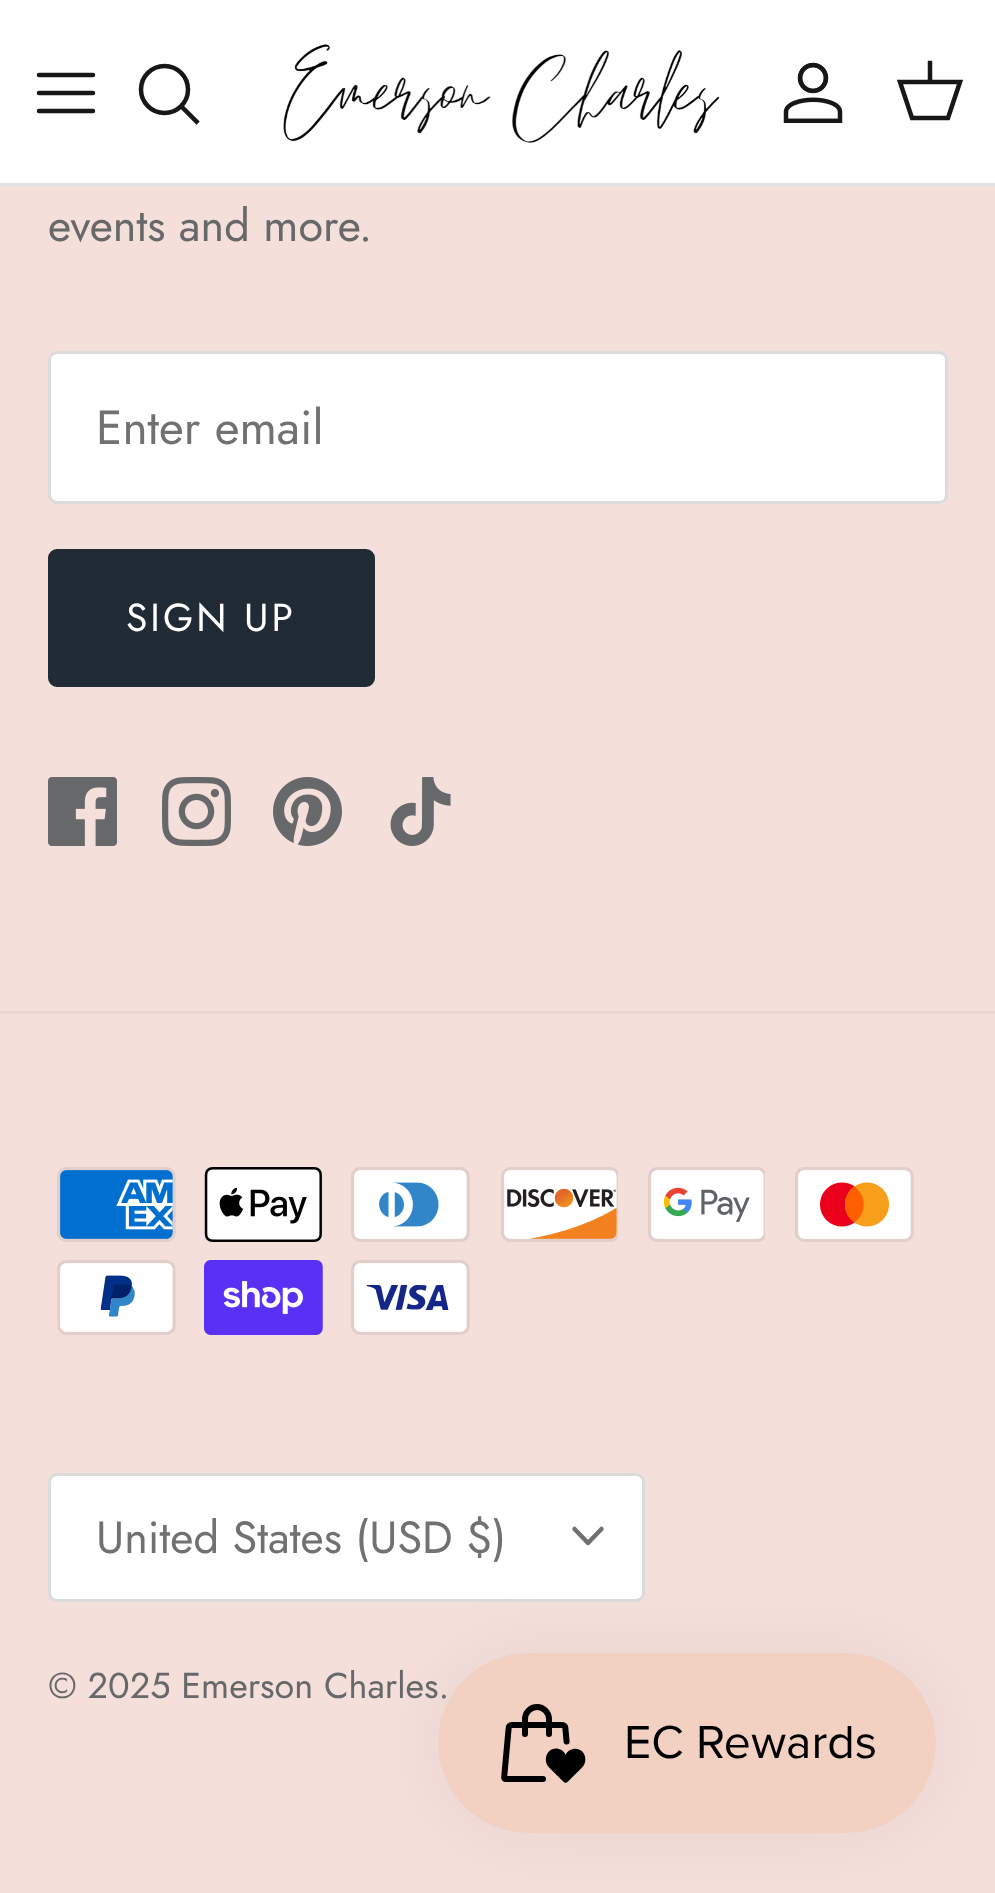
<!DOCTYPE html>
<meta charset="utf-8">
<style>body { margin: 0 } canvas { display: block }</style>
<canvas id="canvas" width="995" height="1893"></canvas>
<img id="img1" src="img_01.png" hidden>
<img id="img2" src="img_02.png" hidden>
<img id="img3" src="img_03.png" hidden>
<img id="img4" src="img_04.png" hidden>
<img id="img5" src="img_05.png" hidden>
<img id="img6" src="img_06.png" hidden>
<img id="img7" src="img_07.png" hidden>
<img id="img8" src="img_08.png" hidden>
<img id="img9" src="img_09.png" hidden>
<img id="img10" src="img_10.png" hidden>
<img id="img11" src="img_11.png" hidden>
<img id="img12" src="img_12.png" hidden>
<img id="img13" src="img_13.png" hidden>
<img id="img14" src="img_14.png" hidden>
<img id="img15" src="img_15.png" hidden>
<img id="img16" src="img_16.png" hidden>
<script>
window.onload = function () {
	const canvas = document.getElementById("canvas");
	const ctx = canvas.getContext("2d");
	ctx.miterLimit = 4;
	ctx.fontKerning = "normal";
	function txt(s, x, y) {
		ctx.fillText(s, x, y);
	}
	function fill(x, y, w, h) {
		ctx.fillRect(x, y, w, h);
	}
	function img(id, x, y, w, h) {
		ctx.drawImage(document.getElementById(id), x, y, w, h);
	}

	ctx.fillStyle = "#F4DFDB";
	fill(0, 0, 995, 1893);
	ctx.fillStyle = "#FFFFFF";
	fill(0, 0, 995, 183);
	ctx.fillStyle = "#DFE3E8";
	fill(0, 183, 995, 3);
	ctx.beginPath();
	ctx.moveTo(39, 93);
	ctx.lineTo(93, 93);
	ctx.moveTo(39, 75);
	ctx.lineTo(93, 75);
	ctx.moveTo(39, 111);
	ctx.lineTo(93, 111);
	ctx.strokeStyle = "#171717";
	ctx.lineWidth = 4.5;
	ctx.lineCap = "round";
	ctx.lineJoin = "round";
	ctx.stroke();
	ctx.beginPath();
	ctx.arc(164.5, 89.5, 23.5, 0, Math.PI * 2);
	ctx.stroke();
	ctx.beginPath();
	ctx.moveTo(183, 108);
	ctx.lineTo(196.5, 121.5);
	ctx.lineCap = "square";
	ctx.lineJoin = "miter";
	ctx.stroke();
	img("img1", 283, 44, 437, 99);
	img("img2", 783, 62, 60, 61);
	ctx.beginPath();
	ctx.moveTo(900, 82);
	ctx.lineTo(960, 82);
	ctx.lineTo(948, 118);
	ctx.lineTo(912, 118);
	ctx.closePath();
	ctx.lineCap = "butt";
	ctx.stroke();
	ctx.beginPath();
	ctx.moveTo(930, 81);
	ctx.lineTo(930, 63);
	ctx.lineCap = "square";
	ctx.stroke();
	ctx.fillStyle = "#FFFFFF";
	ctx.beginPath();
	ctx.roundRect(49.5, 352.5, 897, 150, 7.5);
	ctx.fill();
	ctx.strokeStyle = "#DBDCDC";
	ctx.lineWidth = 3;
	ctx.stroke();
	ctx.fillStyle = "#212B36";
	ctx.beginPath();
	ctx.roundRect(49.5, 550.5, 324, 135, 7.5);
	ctx.fill();
	ctx.strokeStyle = "#212B36";
	ctx.stroke();
	img("img3", 48, 777, 69, 69);
	img("img4", 162, 777, 69, 69);
	img("img5", 273, 777, 69, 69);
	img("img6", 390, 777, 61, 69);
	ctx.fillStyle = "#ECD6D1";
	fill(0, 1011, 995, 3);
	img("img7", 57, 1167, 119, 75);
	img("img8", 204, 1167, 118, 75);
	img("img9", 351, 1167, 119, 75);
	img("img10", 501, 1167, 117, 75);
	img("img11", 648, 1167, 117, 75);
	img("img12", 795, 1167, 119, 75);
	img("img13", 57, 1260, 119, 75);
	img("img14", 204, 1260, 119, 75);
	img("img15", 351, 1260, 119, 75);
	ctx.fillStyle = "#FFFFFF";
	ctx.beginPath();
	ctx.roundRect(49.5, 1474.5, 594, 126, 7.5);
	ctx.fill();
	ctx.strokeStyle = "#DBDCDC";
	ctx.stroke();
	ctx.beginPath();
	ctx.moveTo(574.5, 1529);
	ctx.lineTo(588, 1543);
	ctx.lineTo(601.5, 1529);
	ctx.strokeStyle = "#707173";
	ctx.lineWidth = 4.5;
	ctx.lineCap = "round";
	ctx.lineJoin = "round";
	ctx.stroke();
	ctx.fillStyle = "rgba(0, 0, 0, 0.05)";
	ctx.filter = "blur(37.5px)";
	ctx.beginPath();
	ctx.roundRect(438, 1653, 498, 180, 90);
	ctx.fill();
	ctx.filter = "none";
	ctx.font = "45px Jost";
	ctx.fillStyle = "#676869";
	txt("events and more.", 48, 241);
	ctx.font = "48px Jost";
	ctx.fillStyle = "#707173";
	txt("Enter email", 96, 444);
	ctx.letterSpacing = "3px";
	ctx.font = "39px Jost";
	ctx.fillStyle = "#FFFFFF";
	txt("SIGN UP", 126, 631);
	ctx.letterSpacing = "0px";
	ctx.font = "45px Jost";
	ctx.fillStyle = "#707173";
	txt("United States (USD $)", 96, 1553);
	ctx.font = "36px Jost";
	ctx.fillStyle = "#676869";
	txt("© 2025 Emerson Charles.", 48, 1698);
	img("img16", 438, 1653, 498, 180);
};
</script>
